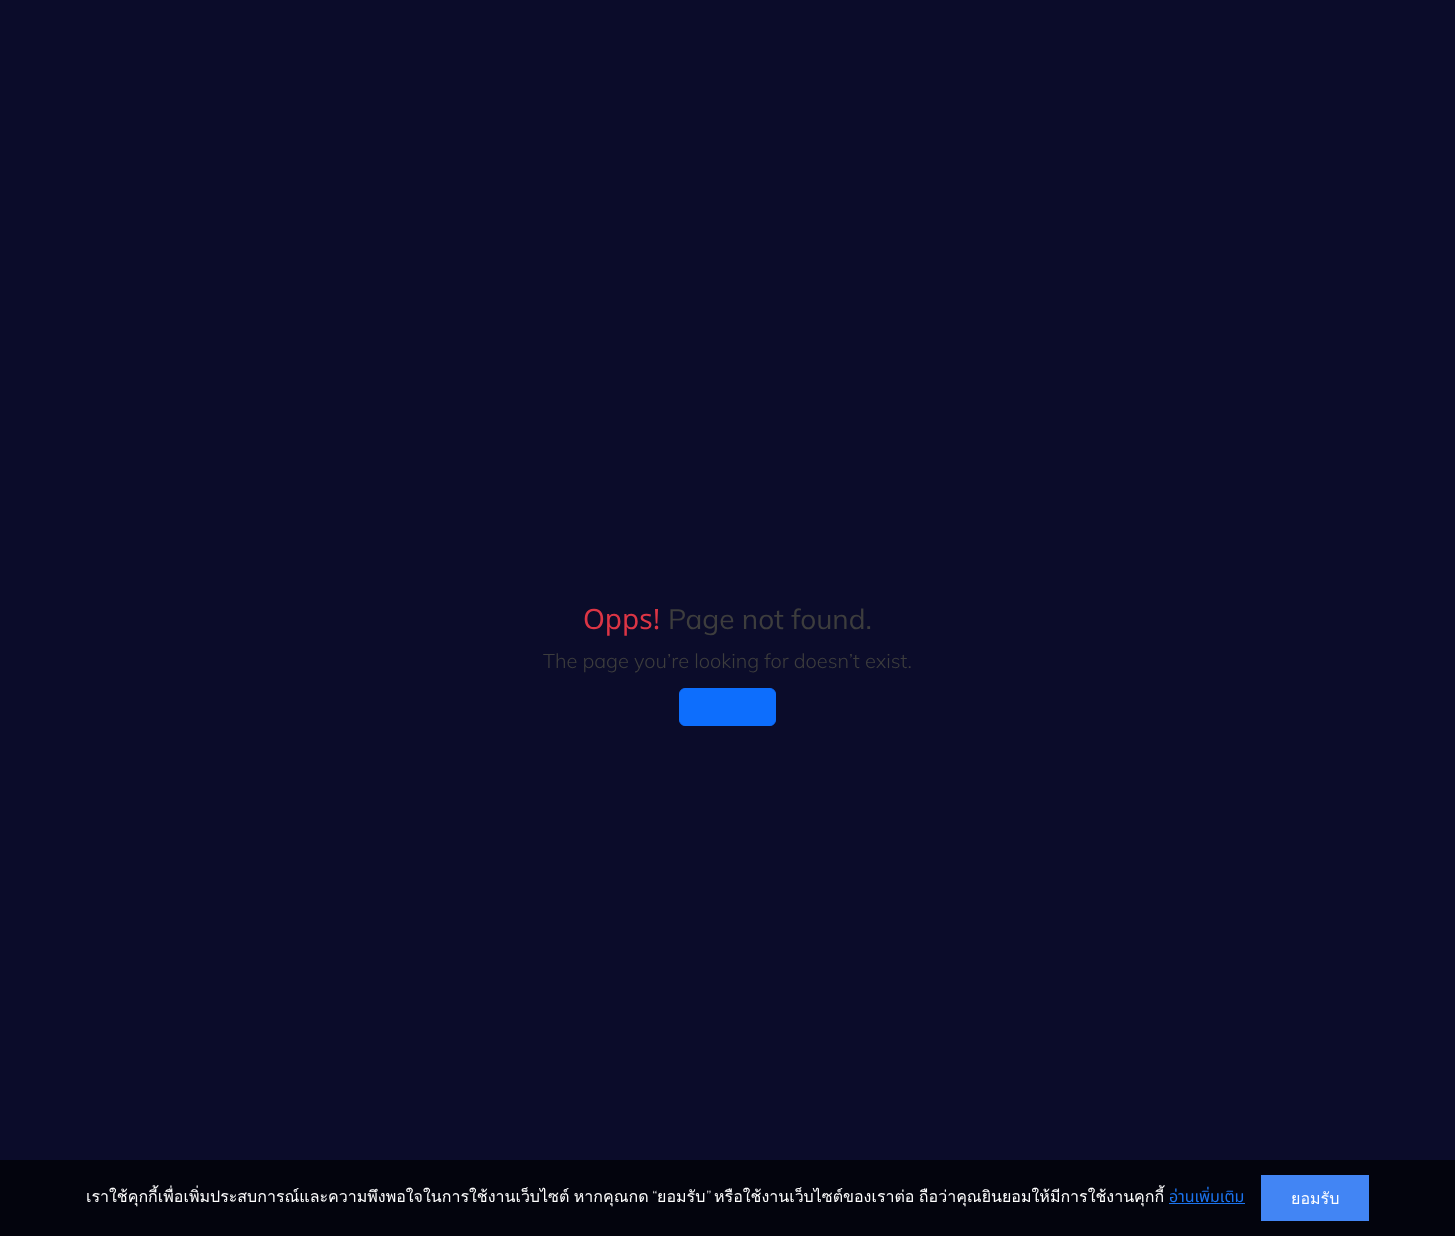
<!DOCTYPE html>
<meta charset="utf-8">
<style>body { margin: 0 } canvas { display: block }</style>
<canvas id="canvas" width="1455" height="1236"></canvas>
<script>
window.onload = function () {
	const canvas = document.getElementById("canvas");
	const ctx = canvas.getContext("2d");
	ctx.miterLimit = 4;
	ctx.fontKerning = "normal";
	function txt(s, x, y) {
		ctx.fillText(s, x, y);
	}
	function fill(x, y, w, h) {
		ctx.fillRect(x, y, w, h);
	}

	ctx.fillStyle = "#0B0C2A";
	fill(0, 0, 1455, 1236);
	ctx.fillStyle = "#0D6EFD";
	ctx.beginPath();
	ctx.roundRect(679.5, 688.5, 96, 37, 5.5);
	ctx.fill();
	ctx.strokeStyle = "#0D6EFD";
	ctx.stroke();
	ctx.fillStyle = "#03040D";
	fill(0, 1160, 1455, 76);
	ctx.fillStyle = "#1B73EE";
	fill(1169, 1203, 76, 1);
	ctx.fillStyle = "#4285F4";
	fill(1261, 1175, 108, 46);
	ctx.font = "28px Noto Sans Thai";
	ctx.fillStyle = "#DC3545";
	txt("Opps!", 583, 629);
	ctx.font = "28px Mulish";
	ctx.fillStyle = "#3D3D3D";
	txt("Page not found.", 668, 629);
	ctx.font = "300 20px Mulish";
	txt("The page you’re looking for doesn’t exist.", 543, 668);
	ctx.wordSpacing = "-1px";
	ctx.font = "16px Loma";
	ctx.fillStyle = "#FFFFFF";
	txt("เราใช้คุกกี้เพื่อเพิ่มประสบการณ์และความพึงพอใจในการใช้งานเว็บไซต์ หากคุณกด", 86, 1202);
	ctx.wordSpacing = "0px";
	ctx.font = "200 16px Mulish";
	txt("“", 652, 1202);
	ctx.font = "16px Loma";
	txt("ยอมรับ", 657, 1202);
	ctx.font = "200 16px Mulish";
	txt("”", 706, 1202);
	ctx.wordSpacing = "-1px";
	ctx.font = "16px Loma";
	txt("หรือใช้งานเว็บไซต์ของเราต่อ ถือว่าคุณยินยอมให้มีการใช้งานคุกกี้", 714, 1202);
	ctx.wordSpacing = "0px";
	ctx.font = "16px Noto Sans Thai";
	ctx.fillStyle = "#1B73EE";
	txt("อ่านเพิ่มเติม", 1169, 1202);
	ctx.font = "16px Loma";
	ctx.fillStyle = "#FFFFFF";
	txt("ยอมรับ", 1291, 1204);
};
</script>
